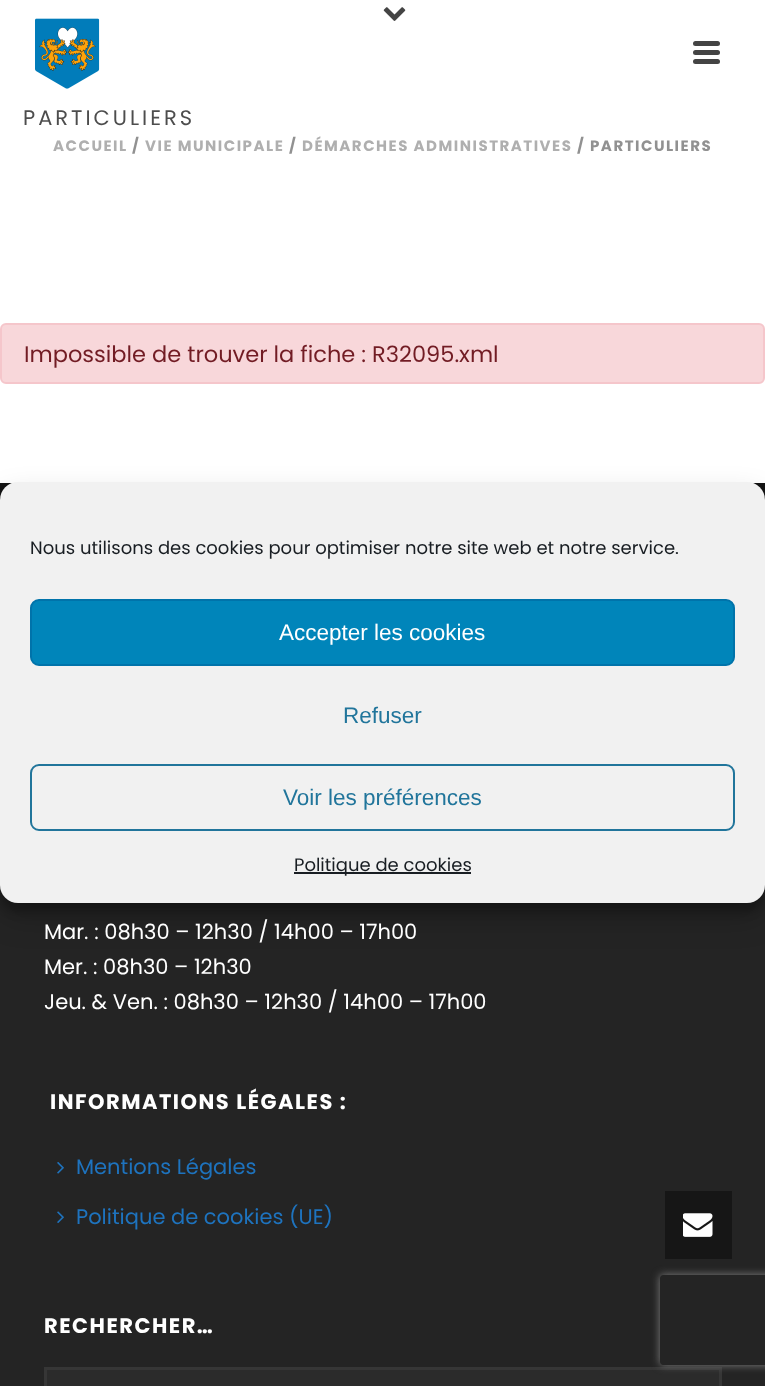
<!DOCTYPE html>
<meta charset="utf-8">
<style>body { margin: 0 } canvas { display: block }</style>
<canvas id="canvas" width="765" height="1386"></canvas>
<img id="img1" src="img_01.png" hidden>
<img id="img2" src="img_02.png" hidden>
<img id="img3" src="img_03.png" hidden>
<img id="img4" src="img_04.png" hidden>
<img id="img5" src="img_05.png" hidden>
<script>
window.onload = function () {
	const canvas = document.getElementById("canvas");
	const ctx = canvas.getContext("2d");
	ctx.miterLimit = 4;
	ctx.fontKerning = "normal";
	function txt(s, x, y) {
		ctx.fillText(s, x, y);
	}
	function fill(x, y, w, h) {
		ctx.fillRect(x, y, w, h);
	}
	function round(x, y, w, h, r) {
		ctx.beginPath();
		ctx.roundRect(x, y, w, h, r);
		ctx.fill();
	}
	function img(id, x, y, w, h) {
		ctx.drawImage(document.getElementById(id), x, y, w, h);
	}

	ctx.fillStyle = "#FFFFFF";
	fill(0, 0, 765, 1386);
	img("img1", 383, 7, 23, 14);
	img("img2", 35, 18, 65, 71);
	ctx.fillStyle = "#444444";
	round(693, 41, 27, 5, 2.5);
	round(693, 50, 27, 5, 2.5);
	round(693, 59, 27, 5, 2.5);
	ctx.fillStyle = "#F8D7DA";
	ctx.beginPath();
	ctx.roundRect(1, 324, 763, 59, 5);
	ctx.fill();
	ctx.strokeStyle = "#F5C6CB";
	ctx.lineWidth = 2;
	ctx.stroke();
	ctx.fillStyle = "#242424";
	fill(0, 885, 765, 501);
	ctx.fillStyle = "#141414";
	fill(0, 483, 765, 17);
	img("img3", 57, 1162, 7, 12);
	img("img4", 57, 1211, 7, 12);
	ctx.fillStyle = "#2B2B2B";
	ctx.beginPath();
	ctx.rect(45.5, 1368.5, 675, 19);
	ctx.fill();
	ctx.strokeStyle = "#363636";
	ctx.lineWidth = 3;
	ctx.stroke();
	ctx.fillStyle = "rgba(0, 0, 0, 0.23)";
	ctx.filter = "blur(4.5px)";
	ctx.beginPath();
	ctx.roundRect(0, 491, 765, 421, 18);
	ctx.fill();
	ctx.filter = "none";
	ctx.fillStyle = "rgba(0, 0, 0, 0.19)";
	ctx.filter = "blur(15px)";
	ctx.beginPath();
	ctx.roundRect(0, 497, 765, 421, 18);
	ctx.fill();
	ctx.filter = "none";
	ctx.fillStyle = "#F1F1F1";
	round(0, 482, 765, 421, 18);
	ctx.fillStyle = "#0085BA";
	ctx.beginPath();
	ctx.roundRect(31, 600, 703, 65, 8);
	ctx.fill();
	ctx.strokeStyle = "#0073AA";
	ctx.lineWidth = 2;
	ctx.stroke();
	ctx.beginPath();
	ctx.roundRect(31, 765, 703, 65, 8);
	ctx.strokeStyle = "#21759B";
	ctx.stroke();
	ctx.fillStyle = "#191E23";
	fill(294, 872, 177, 2);
	ctx.fillStyle = "#161616";
	fill(665, 1191, 67, 68);
	img("img5", 683, 1213, 30, 24);
	ctx.save();
	ctx.beginPath();
	ctx.moveTo(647, 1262);
	ctx.lineTo(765, 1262);
	ctx.lineTo(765, 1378);
	ctx.lineTo(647, 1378);
	ctx.closePath();
	ctx.moveTo(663, 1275);
	ctx.lineTo(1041, 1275);
	ctx.bezierCurveTo(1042.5, 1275, 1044, 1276.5, 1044, 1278);
	ctx.lineTo(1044, 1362);
	ctx.bezierCurveTo(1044, 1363.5, 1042.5, 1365, 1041, 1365);
	ctx.lineTo(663, 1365);
	ctx.bezierCurveTo(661.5, 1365, 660, 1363.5, 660, 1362);
	ctx.lineTo(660, 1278);
	ctx.bezierCurveTo(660, 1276.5, 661.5, 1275, 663, 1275);
	ctx.closePath();
	ctx.clip("evenodd");
	ctx.fillStyle = "#808080";
	ctx.filter = "blur(4px)";
	ctx.beginPath();
	ctx.roundRect(660, 1275, 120, 90, 3);
	ctx.fill();
	ctx.filter = "none";
	ctx.restore();
	ctx.letterSpacing = "3px";
	ctx.font = "21px Poppins";
	ctx.fillStyle = "#4D4D4D";
	txt("PARTICULIERS", 23, 125);
	ctx.letterSpacing = "1.5px";
	ctx.font = "bold 15px Poppins";
	ctx.fillStyle = "#AFAFAF";
	txt("ACCUEIL", 53, 151);
	ctx.fillStyle = "#919191";
	txt("/", 132, 151);
	ctx.fillStyle = "#AFAFAF";
	txt("VIE MUNICIPALE", 145, 151);
	ctx.fillStyle = "#919191";
	txt("/", 289, 151);
	ctx.fillStyle = "#AFAFAF";
	txt("DÉMARCHES ADMINISTRATIVES", 302, 151);
	ctx.fillStyle = "#919191";
	txt("/ PARTICULIERS", 577, 151);
	ctx.letterSpacing = "0px";
	ctx.font = "22.5px Poppins";
	ctx.fillStyle = "#721C24";
	txt("Impossible de trouver la fiche : R32095.xml", 24, 362);
	ctx.font = "21px Poppins";
	ctx.fillStyle = "#FFFFFF";
	txt("Mar. : 08h30 – 12h30 / 14h00 – 17h00", 44, 939);
	txt("Mer. : 08h30 – 12h30", 44, 974);
	txt("Jeu. & Ven. : 08h30 – 12h30 / 14h00 – 17h00", 44, 1009);
	ctx.letterSpacing = "1.5px";
	ctx.font = "bold 21px Poppins";
	txt("INFORMATIONS LÉGALES :", 50, 1109);
	ctx.letterSpacing = "0px";
	ctx.font = "21px Poppins";
	ctx.fillStyle = "#1E73BE";
	txt("Mentions Légales", 76, 1174);
	txt("Politique de cookies (UE)", 76, 1224);
	ctx.letterSpacing = "1.5px";
	ctx.font = "bold 21px Poppins";
	ctx.fillStyle = "#FFFFFF";
	txt("RECHERCHER…", 44, 1333);
	ctx.letterSpacing = "0px";
	ctx.font = "18px Poppins";
	ctx.fillStyle = "#191E23";
	txt("Nous utilisons des cookies pour optimiser notre site web et notre service.", 30, 554);
	ctx.font = "22.5px Liberation Sans";
	ctx.fillStyle = "#FFFFFF";
	txt("Accepter les cookies", 279, 640);
	ctx.fillStyle = "#21759B";
	txt("Refuser", 343, 723);
	txt("Voir les préférences", 283, 805);
	ctx.font = "18px Poppins";
	ctx.fillStyle = "#191E23";
	txt("Politique de cookies", 294, 871);
};
</script>
